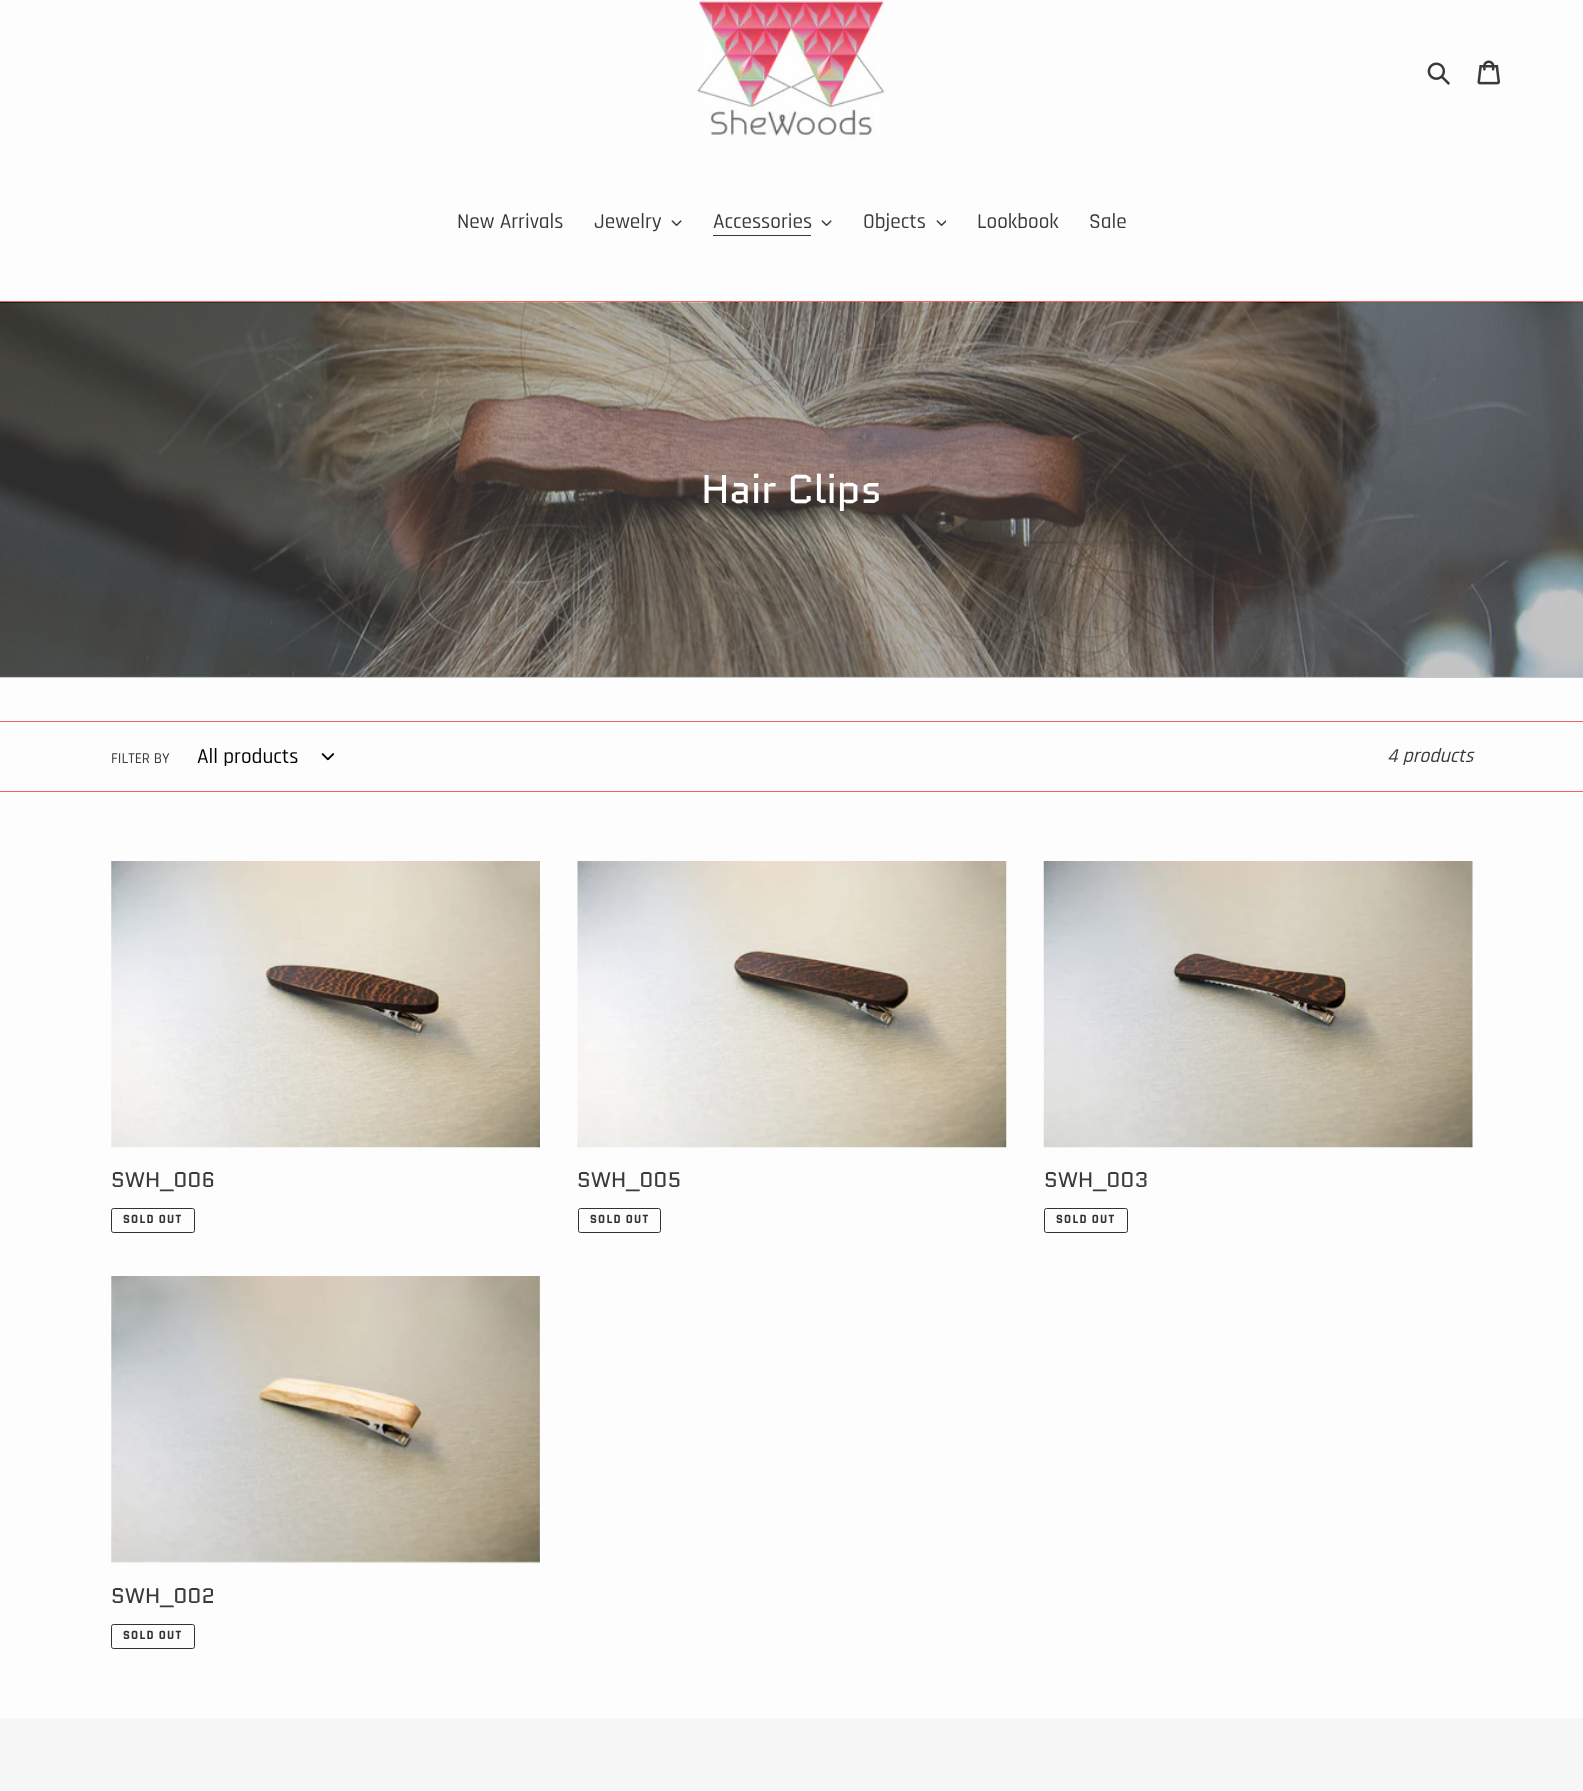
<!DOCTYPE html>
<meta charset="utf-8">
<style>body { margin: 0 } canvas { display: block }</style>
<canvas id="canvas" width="1583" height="1791"></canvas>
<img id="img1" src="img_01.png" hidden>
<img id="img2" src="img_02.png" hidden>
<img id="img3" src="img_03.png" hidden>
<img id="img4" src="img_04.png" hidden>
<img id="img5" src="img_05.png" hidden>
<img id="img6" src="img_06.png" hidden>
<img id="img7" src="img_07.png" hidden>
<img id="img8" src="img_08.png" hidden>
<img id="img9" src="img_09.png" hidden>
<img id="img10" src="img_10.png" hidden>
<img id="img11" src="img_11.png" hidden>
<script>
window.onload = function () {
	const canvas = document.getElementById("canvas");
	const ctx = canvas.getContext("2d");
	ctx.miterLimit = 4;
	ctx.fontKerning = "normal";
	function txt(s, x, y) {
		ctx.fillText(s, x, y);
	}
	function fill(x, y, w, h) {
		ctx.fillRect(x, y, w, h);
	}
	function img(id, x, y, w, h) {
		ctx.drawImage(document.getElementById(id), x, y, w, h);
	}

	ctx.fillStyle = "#FDFDFD";
	fill(0, 0, 1583, 1791);
	ctx.fillStyle = "#C5C5C5";
	fill(0, 676, 1583, 2);
	img("img1", 697, 0, 188, 138);
	img("img2", 1427, 62, 23, 23);
	img("img3", 1477, 60, 23, 25);
	ctx.fillStyle = "#F56262";
	fill(0, 301, 1583, 1);
	img("img4", 671, 220, 11, 6);
	ctx.fillStyle = "#3A3A3A";
	fill(713, 235, 98, 1);
	img("img4", 821, 220, 11, 6);
	img("img5", 936, 220, 10, 6);
	img("img6", 0, 302, 1583, 375);
	ctx.fillStyle = "#F56262";
	fill(0, 721, 1583, 1);
	fill(0, 791, 1583, 1);
	img("img7", 321, 753, 14, 8);
	img("img8", 111, 861, 429, 287);
	ctx.beginPath();
	ctx.roundRect(111.5, 1208.5, 83, 24, 2);
	ctx.strokeStyle = "#333232";
	ctx.stroke();
	img("img9", 577, 861, 430, 287);
	ctx.beginPath();
	ctx.roundRect(578.5, 1208.5, 82, 24, 2);
	ctx.stroke();
	img("img10", 1043, 861, 430, 287);
	ctx.beginPath();
	ctx.roundRect(1044.5, 1208.5, 83, 24, 2);
	ctx.stroke();
	img("img11", 111, 1276, 429, 288);
	ctx.beginPath();
	ctx.roundRect(111.5, 1624.5, 83, 24, 2);
	ctx.stroke();
	ctx.fillStyle = "#F6F6F6";
	fill(0, 1718, 1583, 73);
	ctx.font = "500 21.25px Rajdhani";
	ctx.fillStyle = "#3A3A3A";
	txt("New Arrivals", 457, 228);
	txt("Jewelry", 594, 228);
	txt("Accessories", 713, 228);
	txt("Objects", 863, 228);
	txt("Lookbook", 977, 228);
	txt("Sale", 1089, 228);
	ctx.font = "40px Quantico";
	ctx.fillStyle = "#FFFFFF";
	txt("Hair Clips", 701, 503);
	ctx.font = "500 15px Rajdhani";
	ctx.fillStyle = "#3A3A3A";
	txt("FILTER BY", 111, 763);
	ctx.font = "500 21.25px Rajdhani";
	ctx.fillStyle = "#000000";
	txt("All products", 197, 763);
	ctx.font = "italic 500 20px Rajdhani";
	ctx.fillStyle = "#3A3A3A";
	txt("4 products", 1387, 762);
	ctx.font = "21.25px Quantico";
	txt("SWH_006", 111, 1187);
	ctx.letterSpacing = "1.25px";
	ctx.font = "bold 12.75px Rajdhani";
	ctx.fillStyle = "#333232";
	txt("SOLD OUT", 123, 1223);
	ctx.letterSpacing = "0px";
	ctx.font = "21.25px Quantico";
	ctx.fillStyle = "#3A3A3A";
	txt("SWH_005", 577, 1187);
	ctx.letterSpacing = "1.25px";
	ctx.font = "bold 12.75px Rajdhani";
	ctx.fillStyle = "#333232";
	txt("SOLD OUT", 590, 1223);
	ctx.letterSpacing = "0px";
	ctx.font = "21.25px Quantico";
	ctx.fillStyle = "#3A3A3A";
	txt("SWH_003", 1044, 1187);
	ctx.letterSpacing = "1.25px";
	ctx.font = "bold 12.75px Rajdhani";
	ctx.fillStyle = "#333232";
	txt("SOLD OUT", 1056, 1223);
	ctx.letterSpacing = "0px";
	ctx.font = "21.25px Quantico";
	ctx.fillStyle = "#3A3A3A";
	txt("SWH_002", 111, 1603);
	ctx.letterSpacing = "1.25px";
	ctx.font = "bold 12.75px Rajdhani";
	ctx.fillStyle = "#333232";
	txt("SOLD OUT", 123, 1639);
};
</script>
